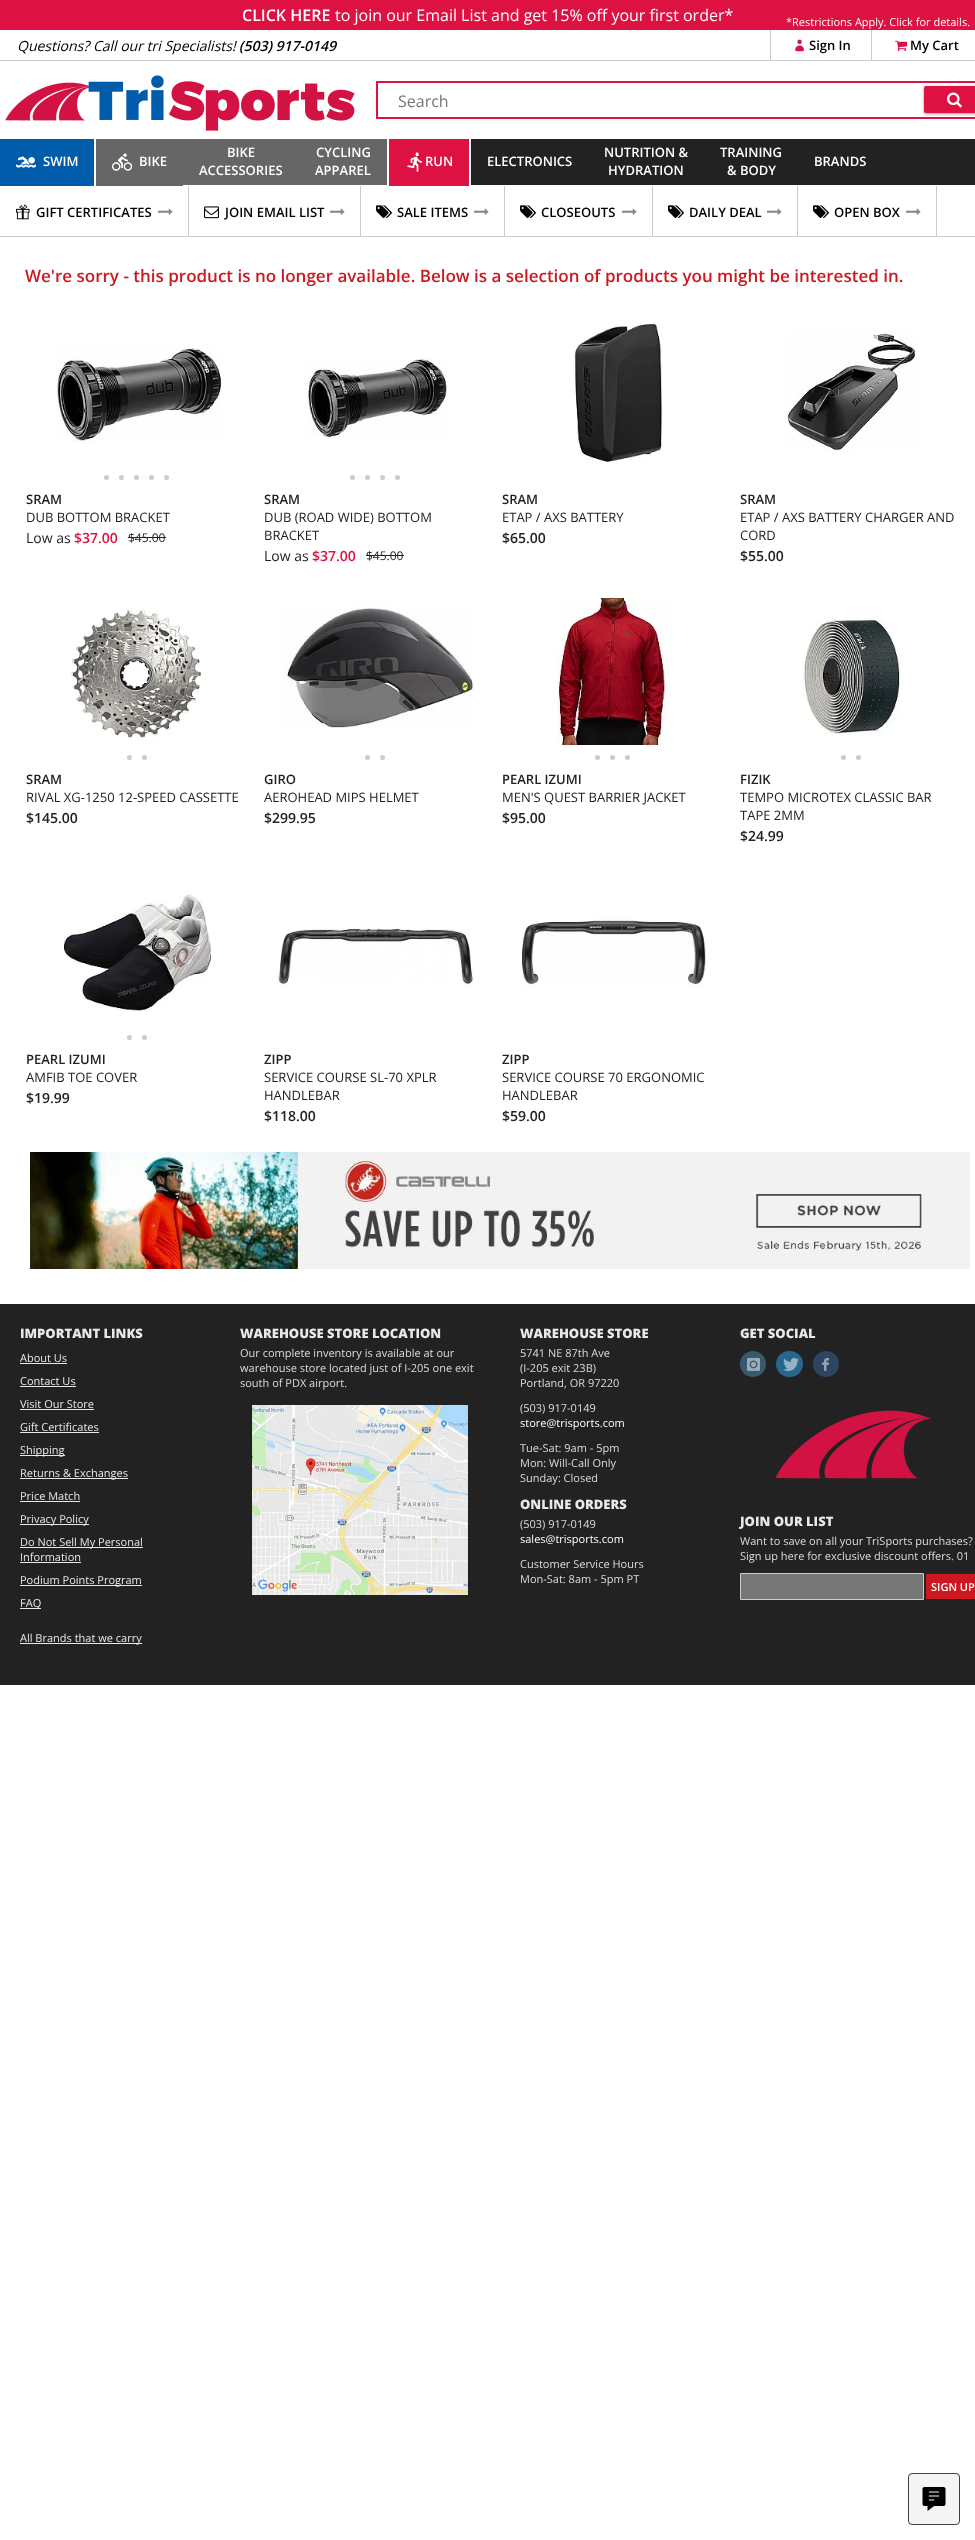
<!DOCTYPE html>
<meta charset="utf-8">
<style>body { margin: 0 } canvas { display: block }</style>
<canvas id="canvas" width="975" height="2540"></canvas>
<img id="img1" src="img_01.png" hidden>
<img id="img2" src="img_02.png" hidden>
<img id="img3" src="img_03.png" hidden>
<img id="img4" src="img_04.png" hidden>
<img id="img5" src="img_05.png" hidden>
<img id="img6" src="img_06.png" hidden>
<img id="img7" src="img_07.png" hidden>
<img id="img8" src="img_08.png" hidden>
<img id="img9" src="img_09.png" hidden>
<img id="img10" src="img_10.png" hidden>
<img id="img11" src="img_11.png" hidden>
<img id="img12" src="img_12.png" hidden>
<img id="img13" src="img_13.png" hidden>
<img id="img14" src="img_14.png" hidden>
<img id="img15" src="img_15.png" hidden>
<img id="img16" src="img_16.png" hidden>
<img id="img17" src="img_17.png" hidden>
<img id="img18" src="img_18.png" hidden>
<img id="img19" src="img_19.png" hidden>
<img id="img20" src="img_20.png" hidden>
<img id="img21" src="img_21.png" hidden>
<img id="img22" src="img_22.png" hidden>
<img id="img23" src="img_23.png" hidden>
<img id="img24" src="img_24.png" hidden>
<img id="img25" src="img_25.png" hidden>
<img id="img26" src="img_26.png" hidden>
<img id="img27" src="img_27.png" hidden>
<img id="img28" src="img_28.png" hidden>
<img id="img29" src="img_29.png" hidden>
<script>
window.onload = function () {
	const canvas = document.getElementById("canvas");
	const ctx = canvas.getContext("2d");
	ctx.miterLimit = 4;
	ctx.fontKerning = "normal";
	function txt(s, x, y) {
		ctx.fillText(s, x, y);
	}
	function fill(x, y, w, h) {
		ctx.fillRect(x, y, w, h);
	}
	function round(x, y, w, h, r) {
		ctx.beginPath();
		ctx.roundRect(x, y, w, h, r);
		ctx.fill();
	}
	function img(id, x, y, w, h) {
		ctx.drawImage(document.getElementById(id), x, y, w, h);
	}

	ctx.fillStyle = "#FFFFFF";
	fill(0, 0, 975, 2540);
	ctx.fillStyle = "#DD1242";
	fill(0, 0, 975, 30);
	ctx.fillStyle = "#CCCCCC";
	fill(0, 60, 975, 1);
	fill(770, 30, 1, 30);
	fill(871, 30, 1, 30);
	img("img1", 795, 39, 9, 13);
	img("img2", 895, 40, 13, 11);
	img("img3", 5, 75, 350, 56);
	ctx.strokeStyle = "#DD1242";
	ctx.lineWidth = 2;
	ctx.strokeRect(377, 82, 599, 36);
	ctx.fillStyle = "rgba(0, 0, 0, 0.4)";
	ctx.filter = "blur(1.5px)";
	ctx.beginPath();
	ctx.roundRect(924, 87, 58, 27, 2);
	ctx.fill();
	ctx.filter = "none";
	ctx.fillStyle = "#DD1242";
	round(924, 86, 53, 27, 2);
	img("img4", 947, 92, 15, 16);
	ctx.fillStyle = "#222222";
	fill(471, 139, 504, 46);
	ctx.fillStyle = "#005CAB";
	fill(0, 139, 94, 47);
	img("img5", 16, 156, 20, 12);
	ctx.fillStyle = "#666666";
	fill(96, 139, 87, 47);
	img("img6", 112, 153, 20, 18);
	fill(183, 139, 204, 46);
	ctx.fillStyle = "#DD1242";
	fill(389, 139, 80, 47);
	img("img7", 407, 152, 15, 20);
	ctx.fillStyle = "#CCCCCC";
	fill(0, 236, 975, 1);
	fill(188, 186, 1, 50);
	img("img8", 16, 204, 14, 16);
	img("img9", 158, 208, 15, 7);
	fill(360, 186, 1, 50);
	img("img10", 204, 206, 15, 13);
	img("img9", 330, 208, 15, 7);
	fill(504, 186, 1, 50);
	img("img11", 376, 205, 16, 13);
	img("img9", 474, 208, 15, 7);
	fill(652, 186, 1, 50);
	img("img11", 520, 205, 16, 13);
	img("img9", 622, 208, 15, 7);
	fill(797, 186, 1, 50);
	img("img11", 668, 205, 16, 13);
	img("img9", 767, 208, 15, 7);
	fill(936, 186, 1, 50);
	img("img11", 813, 205, 16, 13);
	img("img9", 906, 208, 15, 7);
	img("img12", 56, 347, 165, 95);
	ctx.beginPath();
	ctx.arc(106.5, 477.5, 2.5, 0, Math.PI * 2);
	ctx.fill();
	ctx.beginPath();
	ctx.arc(121.5, 477.5, 2.5, 0, Math.PI * 2);
	ctx.fill();
	ctx.beginPath();
	ctx.arc(136.5, 477.5, 2.5, 0, Math.PI * 2);
	ctx.fill();
	ctx.beginPath();
	ctx.arc(151.5, 477.5, 2.5, 0, Math.PI * 2);
	ctx.fill();
	ctx.beginPath();
	ctx.arc(166.5, 477.5, 2.5, 0, Math.PI * 2);
	ctx.fill();
	ctx.fillStyle = "#222222";
	fill(128, 537, 38, 1);
	img("img13", 307, 358, 142, 81);
	ctx.fillStyle = "#CCCCCC";
	ctx.beginPath();
	ctx.arc(352.5, 477.5, 2.5, 0, Math.PI * 2);
	ctx.fill();
	ctx.beginPath();
	ctx.arc(367.5, 477.5, 2.5, 0, Math.PI * 2);
	ctx.fill();
	ctx.beginPath();
	ctx.arc(382.5, 477.5, 2.5, 0, Math.PI * 2);
	ctx.fill();
	ctx.beginPath();
	ctx.arc(397.5, 477.5, 2.5, 0, Math.PI * 2);
	ctx.fill();
	ctx.fillStyle = "#222222";
	fill(366, 555, 38, 1);
	img("img14", 573, 324, 90, 140);
	img("img15", 787, 331, 130, 120);
	img("img16", 70, 608, 131, 131);
	ctx.fillStyle = "#CCCCCC";
	ctx.beginPath();
	ctx.arc(129.5, 757.5, 2.5, 0, Math.PI * 2);
	ctx.fill();
	ctx.beginPath();
	ctx.arc(144.5, 757.5, 2.5, 0, Math.PI * 2);
	ctx.fill();
	img("img17", 283, 605, 191, 123);
	ctx.beginPath();
	ctx.arc(367.5, 757.5, 2.5, 0, Math.PI * 2);
	ctx.fill();
	ctx.beginPath();
	ctx.arc(382.5, 757.5, 2.5, 0, Math.PI * 2);
	ctx.fill();
	img("img18", 557, 598, 112, 147);
	ctx.beginPath();
	ctx.arc(597.5, 757.5, 2.5, 0, Math.PI * 2);
	ctx.fill();
	ctx.beginPath();
	ctx.arc(612.5, 757.5, 2.5, 0, Math.PI * 2);
	ctx.fill();
	ctx.beginPath();
	ctx.arc(627.5, 757.5, 2.5, 0, Math.PI * 2);
	ctx.fill();
	img("img19", 802, 617, 99, 117);
	ctx.beginPath();
	ctx.arc(843.5, 757.5, 2.5, 0, Math.PI * 2);
	ctx.fill();
	ctx.beginPath();
	ctx.arc(858.5, 757.5, 2.5, 0, Math.PI * 2);
	ctx.fill();
	img("img20", 63, 894, 149, 117);
	ctx.beginPath();
	ctx.arc(129.5, 1037.5, 2.5, 0, Math.PI * 2);
	ctx.fill();
	ctx.beginPath();
	ctx.arc(144.5, 1037.5, 2.5, 0, Math.PI * 2);
	ctx.fill();
	img("img21", 276, 927, 198, 60);
	img("img22", 521, 918, 185, 69);
	img("img23", 30, 1152, 940, 117);
	ctx.fillStyle = "#222222";
	fill(0, 1304, 975, 381);
	ctx.fillStyle = "#E8E8E8";
	fill(20, 1363, 47, 1);
	fill(20, 1386, 56, 1);
	fill(20, 1409, 74, 1);
	fill(20, 1432, 79, 1);
	fill(20, 1455, 45, 1);
	fill(20, 1478, 108, 1);
	fill(20, 1501, 60, 1);
	fill(20, 1524, 69, 1);
	fill(20, 1547, 123, 1);
	fill(20, 1562, 61, 1);
	fill(20, 1585, 122, 1);
	fill(20, 1608, 21, 1);
	fill(20, 1643, 122, 1);
	img("img24", 252, 1405, 216, 190);
	ctx.fillStyle = "#37596E";
	ctx.beginPath();
	ctx.arc(753, 1364, 13, 0, Math.PI * 2);
	ctx.fill();
	img("img25", 747, 1357, 13, 14);
	ctx.fillStyle = "#28678C";
	round(776, 1351, 27, 26, 13);
	img("img26", 783, 1358, 16, 13);
	ctx.fillStyle = "#2D4463";
	ctx.beginPath();
	ctx.arc(826, 1364, 13, 0, Math.PI * 2);
	ctx.fill();
	img("img27", 822, 1357, 7, 14);
	img("img28", 775, 1410, 156, 69);
	ctx.fillStyle = "#777777";
	ctx.beginPath();
	ctx.rect(740.5, 1573.5, 183, 26);
	ctx.fill();
	ctx.strokeStyle = "#CCCCCC";
	ctx.lineWidth = 1;
	ctx.stroke();
	ctx.fillStyle = "#CC181E";
	round(926, 1574, 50, 25, 1);
	ctx.fillStyle = "#F5F5F5";
	ctx.beginPath();
	ctx.roundRect(908.5, 2473.5, 51, 51, 3.5);
	ctx.fill();
	ctx.strokeStyle = "#414042";
	ctx.stroke();
	img("img29", 922, 2487, 24, 24);
	ctx.font = "600 16px Open Sans";
	ctx.fillStyle = "#FFFFFF";
	txt("CLICK HERE", 242, 21);
	ctx.font = "16px Open Sans";
	txt("to join our Email List and get 15% off your first order*", 335, 21);
	ctx.font = "11px Open Sans";
	txt("*Restrictions Apply. Click for details.", 786, 26);
	ctx.font = "italic 14px Open Sans";
	ctx.fillStyle = "#000000";
	txt("Questions? Call our tri Specialists!", 17, 51);
	ctx.font = "italic 600 14px Open Sans";
	txt("(503) 917-0149", 239, 51);
	ctx.font = "600 13px Open Sans";
	txt("Sign In", 809, 50);
	txt("My Cart", 910, 50);
	ctx.font = "16px Open Sans";
	ctx.fillStyle = "#757575";
	txt("Search", 398, 107);
	ctx.font = "600 13px Open Sans";
	ctx.fillStyle = "#FFFFFF";
	txt("SWIM", 43, 166);
	txt("BIKE", 139, 166);
	txt("BIKE", 227, 157);
	txt("ACCESSORIES", 199, 175);
	txt("CYCLING", 316, 157);
	txt("APPAREL", 315, 175);
	txt("RUN", 425, 166);
	txt("ELECTRONICS", 487, 166);
	txt("NUTRITION &", 604, 157);
	txt("HYDRATION", 608, 175);
	txt("TRAINING", 720, 157);
	txt("& BODY", 727, 175);
	txt("BRANDS", 814, 166);
	ctx.fillStyle = "#000000";
	txt("GIFT CERTIFICATES", 36, 217);
	txt("JOIN EMAIL LIST", 225, 217);
	txt("SALE ITEMS", 397, 217);
	txt("CLOSEOUTS", 541, 217);
	txt("DAILY DEAL", 689, 217);
	txt("OPEN BOX", 834, 217);
	ctx.font = "600 17px Open Sans";
	ctx.fillStyle = "#CC181E";
	txt("We're sorry - this product is no longer available. Below is a selection of products you might be interested in.", 25, 282);
	ctx.font = "600 13px Open Sans";
	ctx.fillStyle = "#222222";
	txt("SRAM", 26, 504);
	ctx.font = "13px Open Sans";
	txt("DUB BOTTOM BRACKET", 26, 522);
	ctx.font = "14px Open Sans";
	txt("Low as", 26, 543);
	ctx.font = "600 14px Open Sans";
	ctx.fillStyle = "#DD1242";
	txt("$37.00", 74, 543);
	ctx.font = "12px Open Sans";
	ctx.fillStyle = "#222222";
	txt("$45.00", 128, 542);
	ctx.font = "600 13px Open Sans";
	txt("SRAM", 264, 504);
	ctx.font = "13px Open Sans";
	txt("DUB (ROAD WIDE) BOTTOM", 264, 522);
	txt("BRACKET", 264, 540);
	ctx.font = "14px Open Sans";
	txt("Low as", 264, 561);
	ctx.font = "600 14px Open Sans";
	ctx.fillStyle = "#DD1242";
	txt("$37.00", 312, 561);
	ctx.font = "12px Open Sans";
	ctx.fillStyle = "#222222";
	txt("$45.00", 366, 560);
	ctx.font = "600 13px Open Sans";
	txt("SRAM", 502, 504);
	ctx.font = "13px Open Sans";
	txt("ETAP / AXS BATTERY", 502, 522);
	ctx.font = "600 14px Open Sans";
	txt("$65.00", 502, 543);
	ctx.font = "600 13px Open Sans";
	txt("SRAM", 740, 504);
	ctx.font = "13px Open Sans";
	txt("ETAP / AXS BATTERY CHARGER AND", 740, 522);
	txt("CORD", 740, 540);
	ctx.font = "600 14px Open Sans";
	txt("$55.00", 740, 561);
	ctx.font = "600 13px Open Sans";
	txt("SRAM", 26, 784);
	ctx.font = "13px Open Sans";
	txt("RIVAL XG-1250 12-SPEED CASSETTE", 26, 802);
	ctx.font = "600 14px Open Sans";
	txt("$145.00", 26, 823);
	ctx.font = "600 13px Open Sans";
	txt("GIRO", 264, 784);
	ctx.font = "13px Open Sans";
	txt("AEROHEAD MIPS HELMET", 264, 802);
	ctx.font = "600 14px Open Sans";
	txt("$299.95", 264, 823);
	ctx.font = "600 13px Open Sans";
	txt("PEARL IZUMI", 502, 784);
	ctx.font = "13px Open Sans";
	txt("MEN'S QUEST BARRIER JACKET", 502, 802);
	ctx.font = "600 14px Open Sans";
	txt("$95.00", 502, 823);
	ctx.font = "600 13px Open Sans";
	txt("FIZIK", 740, 784);
	ctx.font = "13px Open Sans";
	txt("TEMPO MICROTEX CLASSIC BAR", 740, 802);
	txt("TAPE 2MM", 740, 820);
	ctx.font = "600 14px Open Sans";
	txt("$24.99", 740, 841);
	ctx.font = "600 13px Open Sans";
	txt("PEARL IZUMI", 26, 1064);
	ctx.font = "13px Open Sans";
	txt("AMFIB TOE COVER", 26, 1082);
	ctx.font = "600 14px Open Sans";
	txt("$19.99", 26, 1103);
	ctx.font = "600 13px Open Sans";
	txt("ZIPP", 264, 1064);
	ctx.font = "13px Open Sans";
	txt("SERVICE COURSE SL-70 XPLR", 264, 1082);
	txt("HANDLEBAR", 264, 1100);
	ctx.font = "600 14px Open Sans";
	txt("$118.00", 264, 1121);
	ctx.font = "600 13px Open Sans";
	txt("ZIPP", 502, 1064);
	ctx.font = "13px Open Sans";
	txt("SERVICE COURSE 70 ERGONOMIC", 502, 1082);
	txt("HANDLEBAR", 502, 1100);
	ctx.font = "600 14px Open Sans";
	txt("$59.00", 502, 1121);
	ctx.font = "800 13px Open Sans";
	ctx.fillStyle = "#E8E8E8";
	txt("IMPORTANT LINKS", 20, 1338);
	ctx.font = "11px Open Sans";
	txt("About Us", 20, 1362);
	txt("Contact Us", 20, 1385);
	txt("Visit Our Store", 20, 1408);
	txt("Gift Certificates", 20, 1431);
	txt("Shipping", 20, 1454);
	txt("Returns & Exchanges", 20, 1477);
	txt("Price Match", 20, 1500);
	txt("Privacy Policy", 20, 1523);
	txt("Do Not Sell My Personal", 20, 1546);
	txt("Information", 20, 1561);
	txt("Podium Points Program", 20, 1584);
	txt("FAQ", 20, 1607);
	txt("All Brands that we carry", 20, 1642);
	ctx.font = "800 13px Open Sans";
	txt("WAREHOUSE STORE LOCATION", 240, 1338);
	ctx.font = "11px Open Sans";
	ctx.fillStyle = "#DDDDDD";
	txt("Our complete inventory is available at our", 240, 1357);
	txt("warehouse store located just of I-205 one exit", 240, 1372);
	txt("south of PDX airport.", 240, 1387);
	ctx.font = "800 13px Open Sans";
	ctx.fillStyle = "#E8E8E8";
	txt("WAREHOUSE STORE", 520, 1338);
	ctx.font = "11px Open Sans";
	ctx.fillStyle = "#DDDDDD";
	txt("5741 NE 87th Ave", 520, 1357);
	txt("(I-205 exit 23B)", 520, 1372);
	txt("Portland, OR 97220", 520, 1387);
	txt("(503) 917-0149", 520, 1412);
	ctx.fillStyle = "#FFFFFF";
	txt("store@trisports.com", 520, 1427);
	ctx.fillStyle = "#DDDDDD";
	txt("Tue-Sat: 9am - 5pm", 520, 1452);
	txt("Mon: Will-Call Only", 520, 1467);
	txt("Sunday: Closed", 520, 1482);
	ctx.font = "800 13px Open Sans";
	ctx.fillStyle = "#E8E8E8";
	txt("ONLINE ORDERS", 520, 1509);
	ctx.font = "11px Open Sans";
	ctx.fillStyle = "#DDDDDD";
	txt("(503) 917-0149", 520, 1528);
	ctx.fillStyle = "#FFFFFF";
	txt("sales@trisports.com", 520, 1543);
	ctx.fillStyle = "#DDDDDD";
	txt("Customer Service Hours", 520, 1568);
	txt("Mon-Sat: 8am - 5pm PT", 520, 1583);
	ctx.font = "800 13px Open Sans";
	ctx.fillStyle = "#E8E8E8";
	txt("GET SOCIAL", 740, 1338);
	txt("JOIN OUR LIST", 740, 1526);
	ctx.font = "11px Open Sans";
	ctx.fillStyle = "#DDDDDD";
	txt("Want to save on all your TriSports purchases?", 740, 1545);
	txt("Sign up here for exclusive discount offers. 01", 740, 1560);
	ctx.font = "600 11px Open Sans";
	ctx.fillStyle = "#FFFFFF";
	txt("SIGN UP", 931, 1591);
};
</script>
